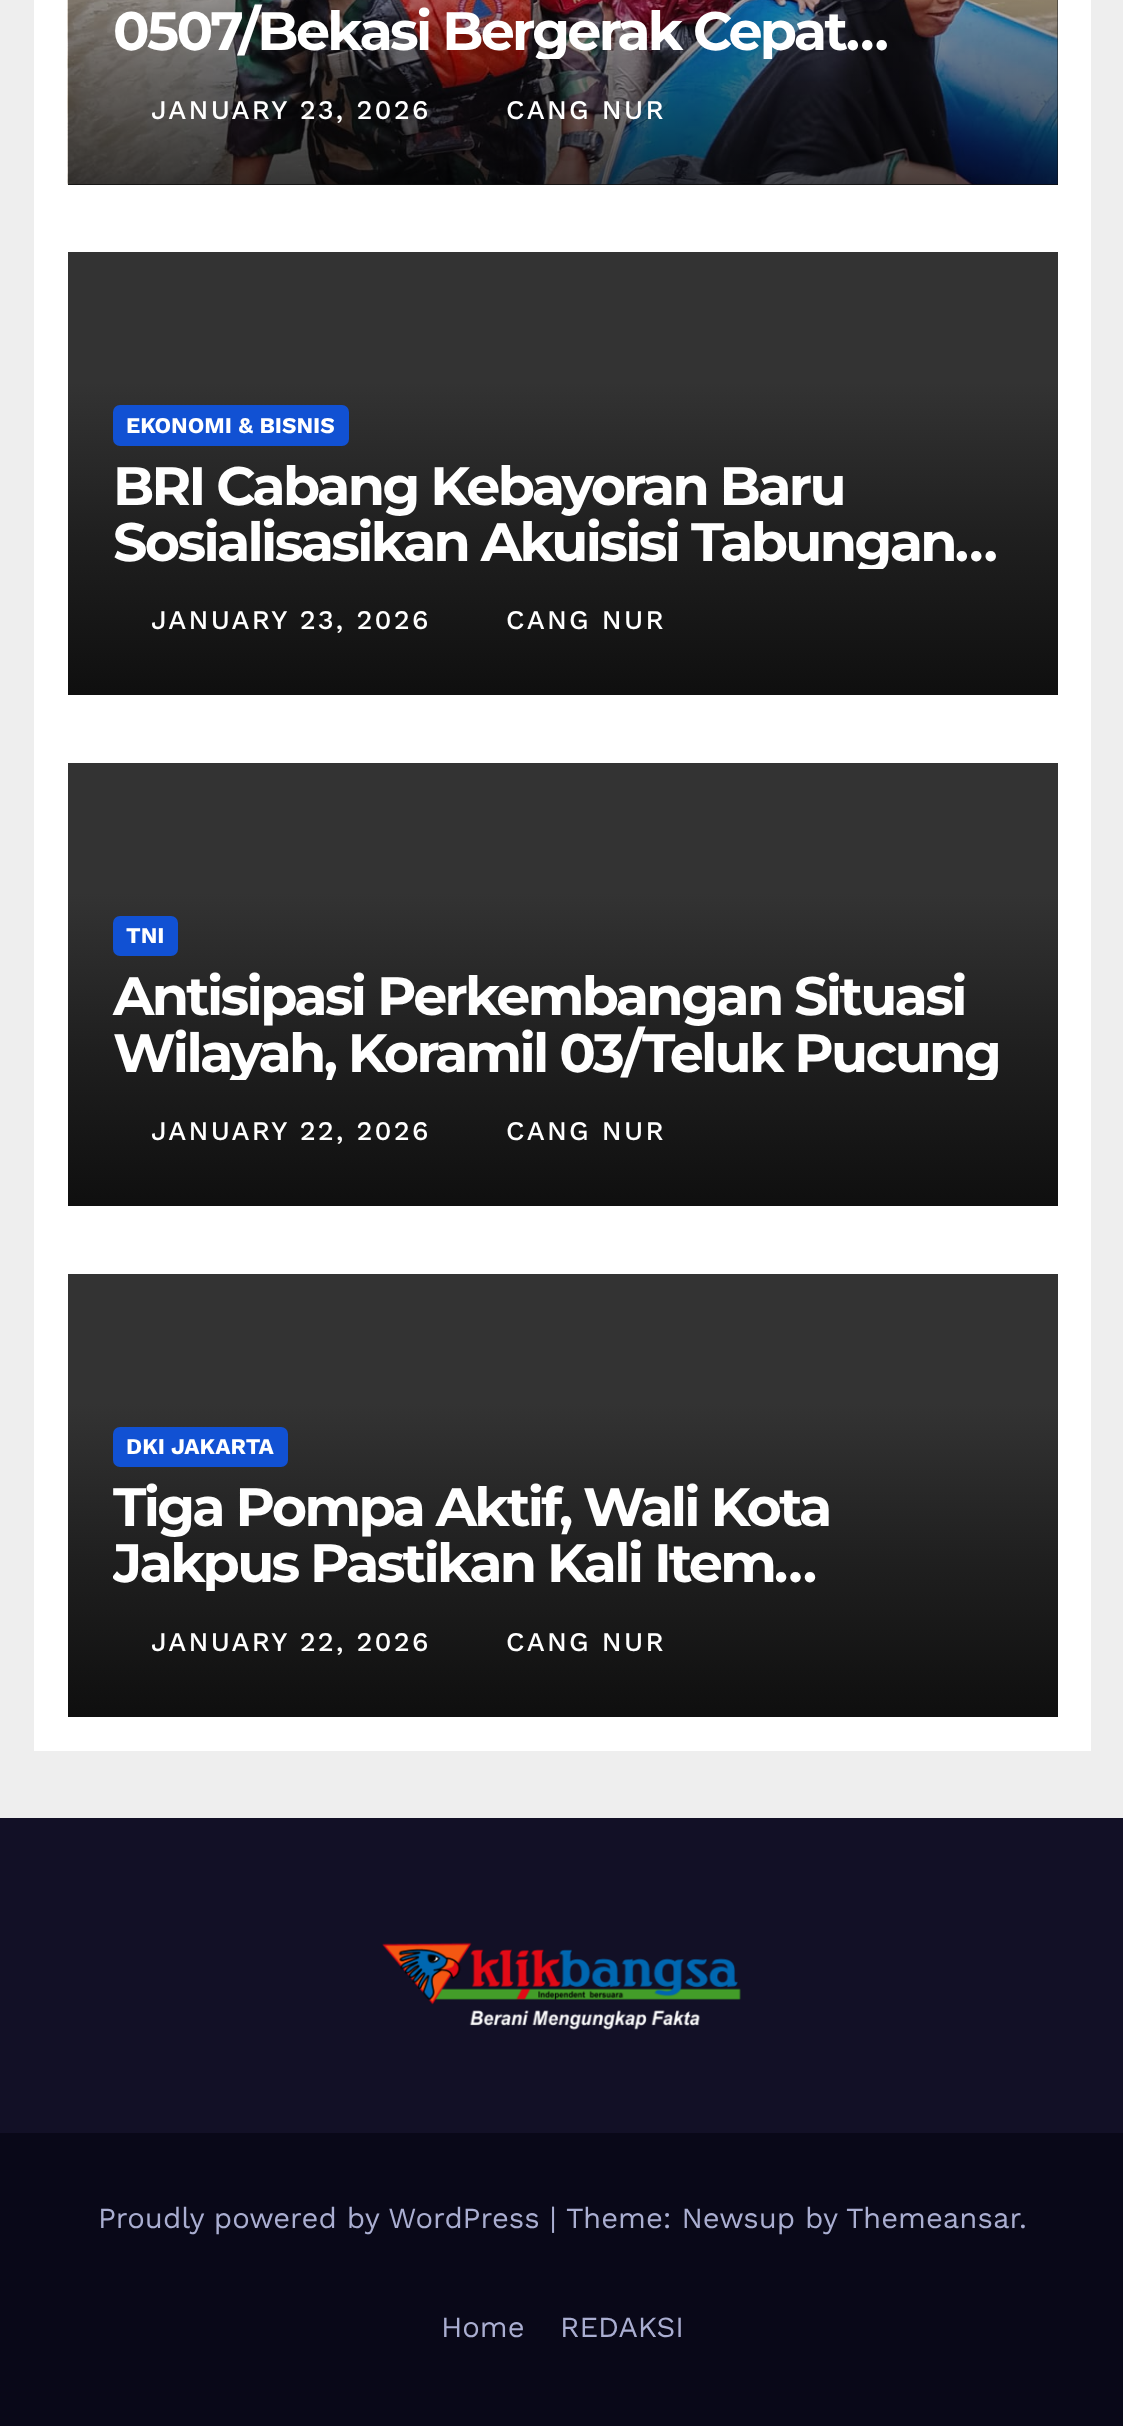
<!DOCTYPE html>
<meta charset="utf-8">
<style>body { margin: 0 } canvas { display: block }</style>
<canvas id="canvas" width="1123" height="2426"></canvas>
<img id="img1" src="img_01.png" hidden>
<img id="img2" src="img_02.png" hidden>
<script>
window.onload = function () {
	const canvas = document.getElementById("canvas");
	const ctx = canvas.getContext("2d");
	ctx.miterLimit = 4;
	ctx.fontKerning = "normal";
	function txt(s, x, y) {
		ctx.fillText(s, x, y);
	}
	function fill(x, y, w, h) {
		ctx.fillRect(x, y, w, h);
	}
	function round(x, y, w, h, r) {
		ctx.beginPath();
		ctx.roundRect(x, y, w, h, r);
		ctx.fill();
	}
	function img(id, x, y, w, h) {
		ctx.drawImage(document.getElementById(id), x, y, w, h);
	}
	let gradient;

	ctx.fillStyle = "#EEEEEE";
	fill(0, 0, 1123, 2426);
	ctx.fillStyle = "#FFFFFF";
	fill(34, 0, 1057, 1751);
	ctx.fillStyle = "#333333";
	fill(68, 0, 990, 185);
	img("img1", 67, 0, 991, 185);
	gradient = ctx.createLinearGradient(563, -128, 563, 185);
	gradient.addColorStop(0, "rgba(0, 0, 0, 0)");
	gradient.addColorStop(0.5, "rgba(0, 0, 0, 0.4)");
	gradient.addColorStop(1, "rgba(0, 0, 0, 0.7)");
	ctx.fillStyle = gradient;
	fill(68, 0, 990, 185);
	ctx.fillStyle = "#333333";
	fill(68, 252, 990, 131);
	gradient = ctx.createLinearGradient(563, 382, 563, 695);
	gradient.addColorStop(0, "#333333");
	gradient.addColorStop(0.5, "#1F1F1F");
	gradient.addColorStop(1, "#0F0F0F");
	ctx.fillStyle = gradient;
	fill(68, 383, 990, 312);
	ctx.fillStyle = "#1151D3";
	round(113, 405, 236, 41, 7);
	ctx.fillStyle = "#333333";
	fill(68, 763, 990, 130);
	gradient = ctx.createLinearGradient(563, 893, 563, 1206);
	gradient.addColorStop(0, "#333333");
	gradient.addColorStop(0.5, "#1F1F1F");
	gradient.addColorStop(1, "#0F0F0F");
	ctx.fillStyle = gradient;
	fill(68, 893, 990, 313);
	ctx.fillStyle = "#1151D3";
	round(113, 916, 65, 40, 7);
	ctx.fillStyle = "#333333";
	fill(68, 1274, 990, 130);
	gradient = ctx.createLinearGradient(563, 1404, 563, 1717);
	gradient.addColorStop(0, "#333333");
	gradient.addColorStop(0.5, "#1F1F1F");
	gradient.addColorStop(1, "#0F0F0F");
	ctx.fillStyle = gradient;
	fill(68, 1404, 990, 313);
	ctx.fillStyle = "#1151D3";
	round(113, 1427, 175, 40, 7);
	ctx.fillStyle = "#121026";
	fill(0, 1818, 1123, 315);
	img("img2", 382, 1942, 359, 88);
	ctx.fillStyle = "#090818";
	fill(0, 2133, 1123, 293);
	ctx.save();
	ctx.beginPath();
	ctx.rect(113, 0, 900, 59);
	ctx.clip();
	ctx.letterSpacing = "-2.7px";
	ctx.font = "bold 54px Montserrat";
	ctx.fillStyle = "#FFFFFF";
	txt("0507/Bekasi Bergerak Cepat…", 113, 50);
	ctx.restore();
	ctx.letterSpacing = "2.25px";
	ctx.font = "500 27px Work Sans";
	ctx.fillStyle = "#FFFFFF";
	txt("JANUARY 23, 2026", 151, 119);
	txt("CANG NUR", 506, 119);
	ctx.letterSpacing = "0px";
	ctx.font = "bold 22.5px Work Sans";
	txt("EKONOMI & BISNIS", 126, 433);
	ctx.letterSpacing = "-2.7px";
	ctx.font = "bold 54px Montserrat";
	txt("BRI Cabang Kebayoran Baru", 113, 505);
	ctx.save();
	ctx.beginPath();
	ctx.rect(113, 457, 900, 112);
	ctx.clip();
	txt("Sosialisasikan Akuisisi Tabungan…", 113, 561);
	ctx.restore();
	ctx.letterSpacing = "2.25px";
	ctx.font = "500 27px Work Sans";
	txt("JANUARY 23, 2026", 151, 629);
	txt("CANG NUR", 506, 629);
	ctx.letterSpacing = "0px";
	ctx.font = "bold 22.5px Work Sans";
	txt("TNI", 126, 943);
	ctx.letterSpacing = "-2.7px";
	ctx.font = "bold 54px Montserrat";
	txt("Antisipasi Perkembangan Situasi", 113, 1015);
	ctx.save();
	ctx.beginPath();
	ctx.rect(113, 968, 900, 112);
	ctx.clip();
	txt("Wilayah, Koramil 03/Teluk Pucung", 113, 1072);
	ctx.restore();
	ctx.letterSpacing = "2.25px";
	ctx.font = "500 27px Work Sans";
	txt("JANUARY 22, 2026", 151, 1140);
	txt("CANG NUR", 506, 1140);
	ctx.letterSpacing = "0px";
	ctx.font = "bold 22.5px Work Sans";
	txt("DKI JAKARTA", 126, 1454);
	ctx.save();
	ctx.beginPath();
	ctx.rect(113, 1478, 900, 113);
	ctx.clip();
	ctx.letterSpacing = "-2.7px";
	ctx.font = "bold 54px Montserrat";
	txt("Tiga Pompa Aktif, Wali Kota", 113, 1526);
	txt("Jakpus Pastikan Kali Item…", 113, 1582);
	ctx.restore();
	ctx.letterSpacing = "2.25px";
	ctx.font = "500 27px Work Sans";
	txt("JANUARY 22, 2026", 151, 1651);
	txt("CANG NUR", 506, 1651);
	ctx.letterSpacing = "0px";
	ctx.font = "29.25px Work Sans";
	ctx.fillStyle = "#AAAED1";
	txt("Proudly powered by WordPress |", 98, 2228);
	txt("Theme: Newsup by", 566, 2228);
	txt("Themeansar", 846, 2228);
	txt(".", 1019, 2228);
	txt("Home", 441, 2337);
	txt("REDAKSI", 560, 2337);
};
</script>
